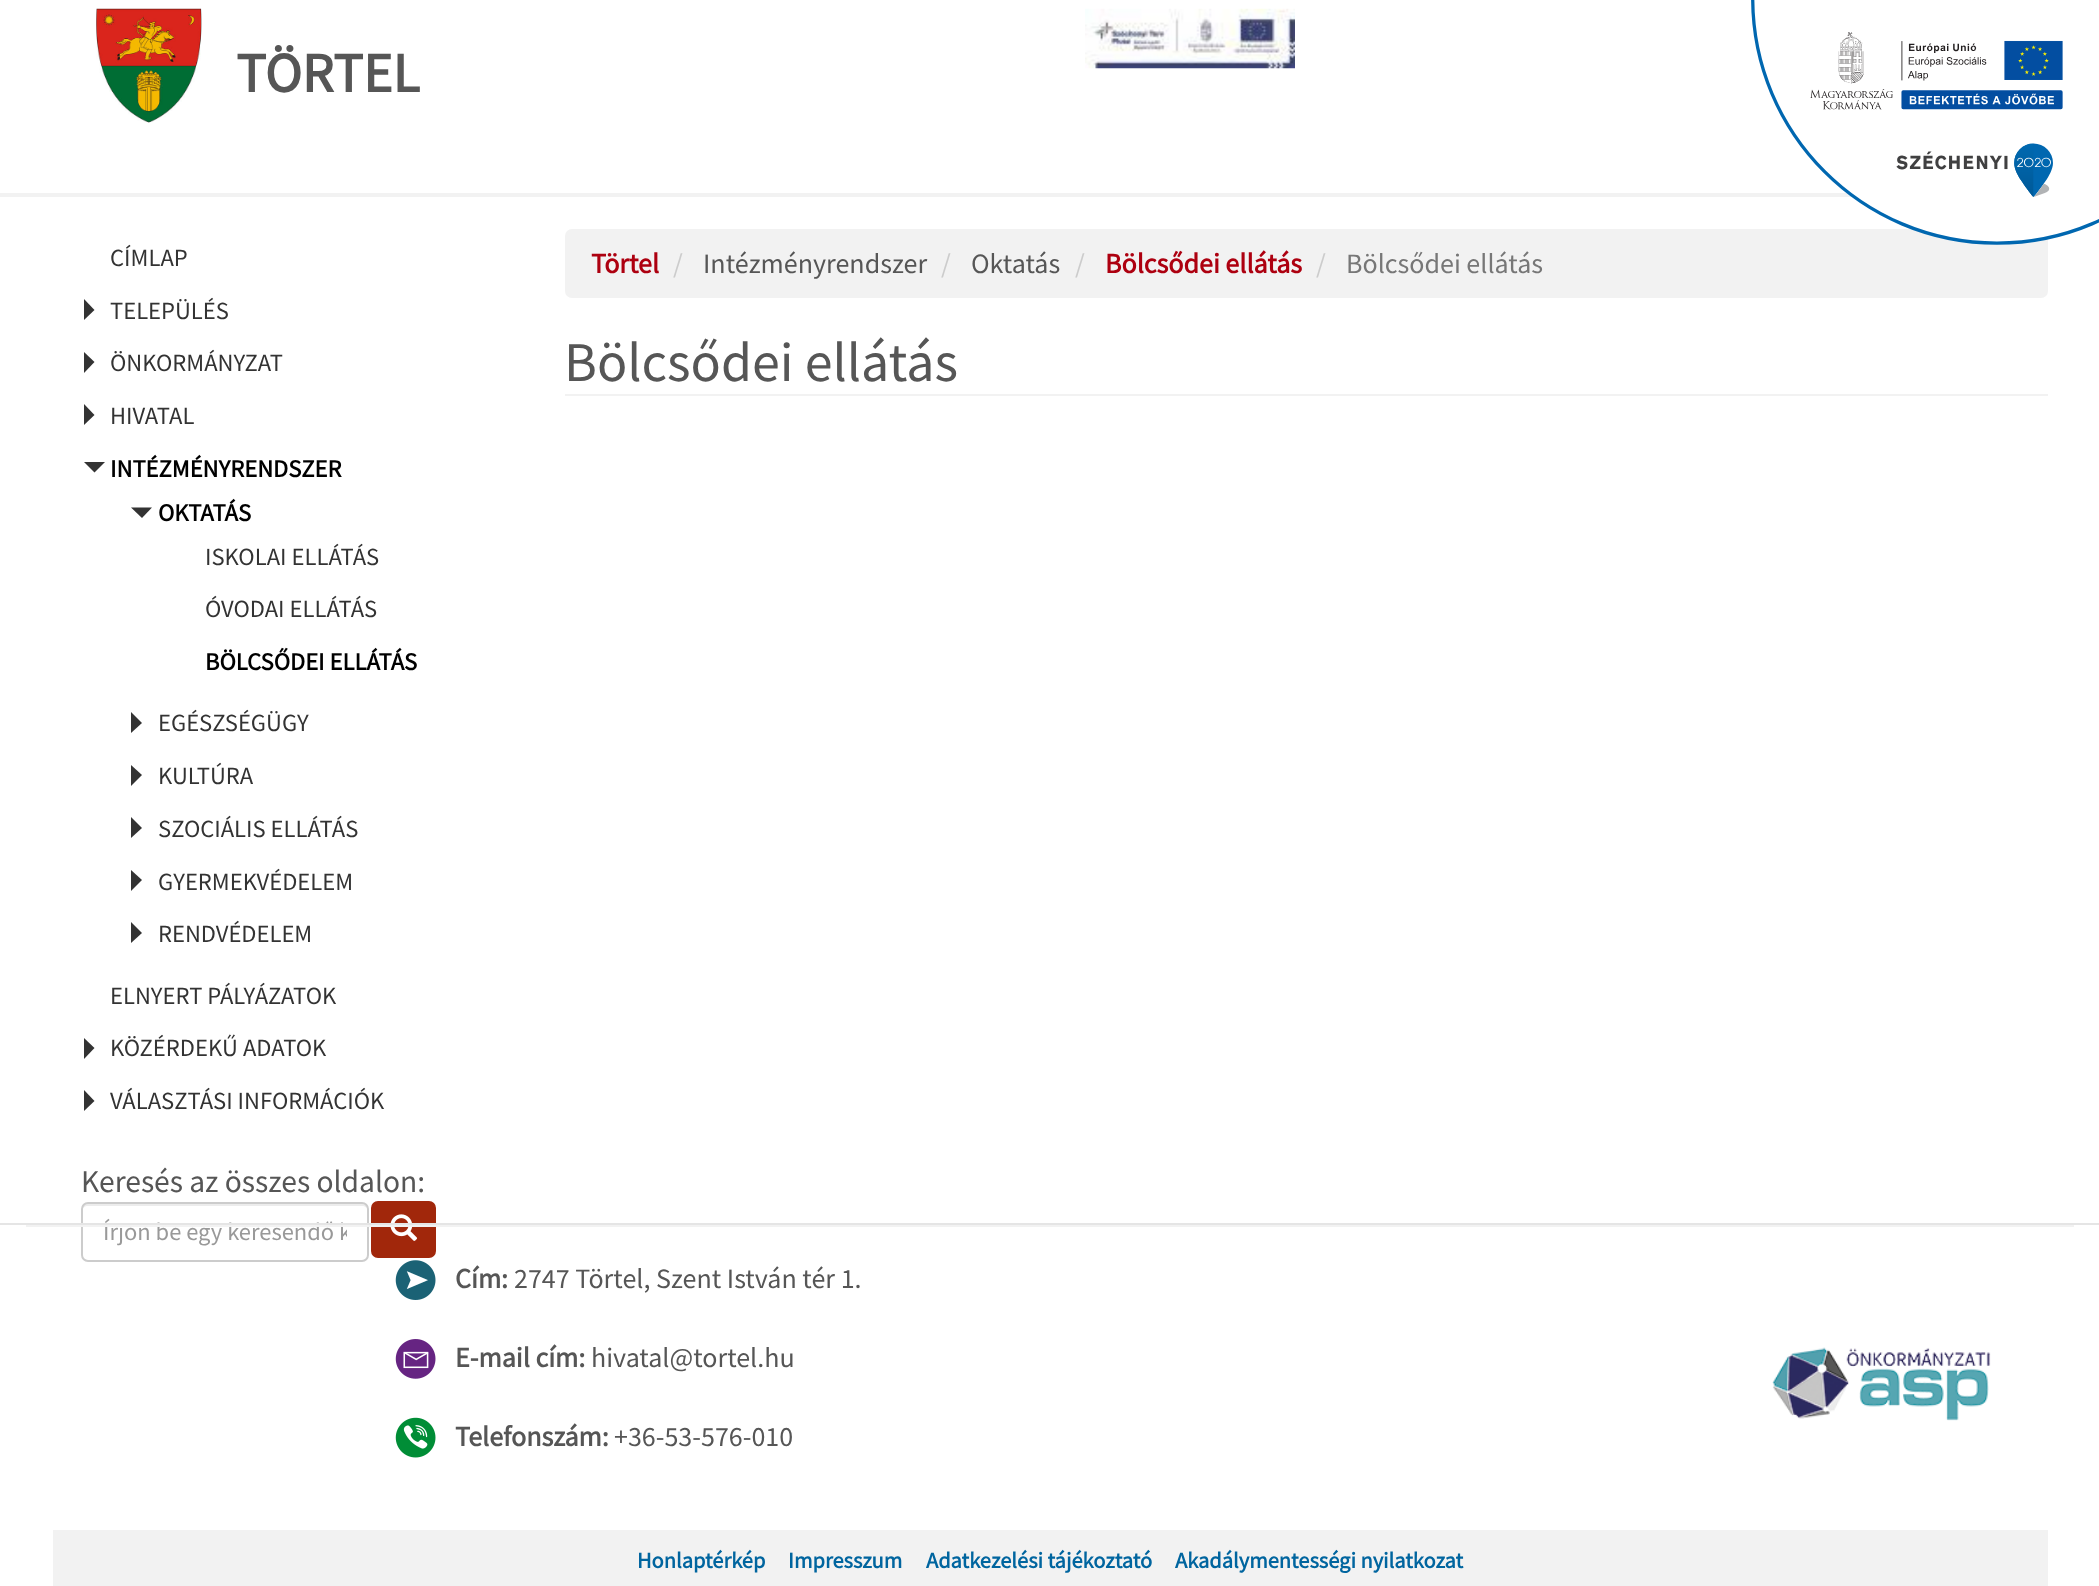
<!DOCTYPE html>
<meta charset="utf-8">
<style>body { margin: 0 } canvas { display: block }</style>
<canvas id="canvas" width="2099" height="1586"></canvas>
<img id="img1" src="img_01.png" hidden>
<img id="img2" src="img_02.png" hidden>
<img id="img3" src="img_03.png" hidden>
<img id="img4" src="img_04.png" hidden>
<img id="img5" src="img_05.png" hidden>
<img id="img6" src="img_06.png" hidden>
<img id="img7" src="img_07.png" hidden>
<img id="img8" src="img_08.png" hidden>
<script>
window.onload = function () {
	const canvas = document.getElementById("canvas");
	const ctx = canvas.getContext("2d");
	ctx.miterLimit = 4;
	ctx.fontKerning = "normal";
	function txt(s, x, y) {
		ctx.fillText(s, x, y);
	}
	function fill(x, y, w, h) {
		ctx.fillRect(x, y, w, h);
	}
	function round(x, y, w, h, r) {
		ctx.beginPath();
		ctx.roundRect(x, y, w, h, r);
		ctx.fill();
	}
	function img(id, x, y, w, h) {
		ctx.drawImage(document.getElementById(id), x, y, w, h);
	}

	ctx.fillStyle = "#FFFFFF";
	fill(0, 0, 2099, 1586);
	ctx.fillStyle = "#F2F2F2";
	fill(0, 193, 1852, 4);
	img("img1", 96, 8, 106, 115);
	img("img2", 1085, 8, 210, 61);
	ctx.fillStyle = "#333333";
	ctx.beginPath();
	ctx.moveTo(84, 320);
	ctx.lineTo(84, 299);
	ctx.lineTo(94.5, 310);
	ctx.closePath();
	ctx.fill();
	ctx.beginPath();
	ctx.moveTo(84, 373);
	ctx.lineTo(84, 352);
	ctx.lineTo(94.5, 362);
	ctx.closePath();
	ctx.fill();
	ctx.beginPath();
	ctx.moveTo(84, 425);
	ctx.lineTo(84, 404);
	ctx.lineTo(94.5, 415);
	ctx.closePath();
	ctx.fill();
	ctx.beginPath();
	ctx.moveTo(84, 462);
	ctx.lineTo(105, 462);
	ctx.lineTo(94.5, 472.5);
	ctx.closePath();
	ctx.fill();
	ctx.beginPath();
	ctx.moveTo(131, 507.5);
	ctx.lineTo(152, 507.5);
	ctx.lineTo(142, 518);
	ctx.closePath();
	ctx.fill();
	ctx.beginPath();
	ctx.moveTo(131, 733);
	ctx.lineTo(131, 712);
	ctx.lineTo(142, 723);
	ctx.closePath();
	ctx.fill();
	ctx.beginPath();
	ctx.moveTo(131, 786);
	ctx.lineTo(131, 765);
	ctx.lineTo(142, 775);
	ctx.closePath();
	ctx.fill();
	ctx.beginPath();
	ctx.moveTo(131, 838);
	ctx.lineTo(131, 817);
	ctx.lineTo(142, 828);
	ctx.closePath();
	ctx.fill();
	ctx.beginPath();
	ctx.moveTo(131, 891);
	ctx.lineTo(131, 870);
	ctx.lineTo(142, 880);
	ctx.closePath();
	ctx.fill();
	ctx.beginPath();
	ctx.moveTo(131, 943);
	ctx.lineTo(131, 922);
	ctx.lineTo(142, 933);
	ctx.closePath();
	ctx.fill();
	ctx.beginPath();
	ctx.moveTo(84, 1059);
	ctx.lineTo(84, 1038);
	ctx.lineTo(94.5, 1048);
	ctx.closePath();
	ctx.fill();
	ctx.beginPath();
	ctx.moveTo(84, 1111);
	ctx.lineTo(84, 1090);
	ctx.lineTo(94.5, 1101);
	ctx.closePath();
	ctx.fill();
	ctx.fillStyle = "#ECECEC";
	ctx.beginPath();
	ctx.moveTo(88, 1206);
	ctx.lineTo(362, 1206);
	ctx.bezierCurveTo(365, 1206, 368, 1208, 368, 1211);
	ctx.bezierCurveTo(368, 1208, 367, 1204, 363, 1204);
	ctx.lineTo(86, 1204);
	ctx.bezierCurveTo(82, 1205, 82, 1208, 82, 1211);
	ctx.bezierCurveTo(82, 1208, 85, 1206, 88, 1206);
	ctx.closePath();
	ctx.fill();
	ctx.beginPath();
	ctx.roundRect(82, 1203, 286, 58, 6);
	ctx.strokeStyle = "#CCCCCC";
	ctx.lineWidth = 2;
	ctx.stroke();
	ctx.fillStyle = "#A1270B";
	ctx.beginPath();
	ctx.roundRect(372, 1202, 63, 55, 6);
	ctx.fill();
	ctx.strokeStyle = "#A1270B";
	ctx.stroke();
	img("img3", 390, 1214, 28, 27);
	ctx.fillStyle = "#F2F2F2";
	round(565, 229, 1483, 69, 7);
	fill(565, 394, 1483, 2);
	img("img4", 395, 1260, 41, 40);
	img("img5", 395, 1339, 41, 40);
	img("img6", 395, 1417, 41, 41);
	img("img7", 1772, 1347, 219, 74);
	fill(53, 1530, 1995, 56);
	img("img8", 1751, 0, 348, 245);
	ctx.font = "bold 56px Source Sans Pro";
	ctx.fillStyle = "#565656";
	txt("TÖRTEL", 236, 92);
	ctx.font = "24.6px Source Sans Pro";
	ctx.fillStyle = "#333333";
	txt("CÍMLAP", 110, 266);
	txt("TELEPÜLÉS", 110, 319);
	txt("ÖNKORMÁNYZAT", 110, 371);
	txt("HIVATAL", 110, 424);
	ctx.font = "bold 24.6px Source Sans Pro";
	ctx.fillStyle = "#000000";
	txt("INTÉZMÉNYRENDSZER", 110, 477);
	txt("OKTATÁS", 158, 521);
	ctx.font = "24.6px Source Sans Pro";
	ctx.fillStyle = "#333333";
	txt("ISKOLAI ELLÁTÁS", 205, 565);
	txt("ÓVODAI ELLÁTÁS", 205, 617);
	ctx.font = "bold 24.6px Source Sans Pro";
	ctx.fillStyle = "#000000";
	txt("BÖLCSŐDEI ELLÁTÁS", 205, 670);
	ctx.font = "24.6px Source Sans Pro";
	ctx.fillStyle = "#333333";
	txt("EGÉSZSÉGÜGY", 158, 731);
	txt("KULTÚRA", 158, 784);
	txt("SZOCIÁLIS ELLÁTÁS", 158, 837);
	txt("GYERMEKVÉDELEM", 158, 890);
	txt("RENDVÉDELEM", 158, 942);
	txt("ELNYERT PÁLYÁZATOK", 110, 1004);
	txt("KÖZÉRDEKŰ ADATOK", 110, 1056);
	txt("VÁLASZTÁSI INFORMÁCIÓK", 110, 1109);
	ctx.font = "31.5px Source Sans Pro";
	ctx.fillStyle = "#565656";
	txt("Keresés az összes oldalon:", 81, 1192);
	ctx.save();
	ctx.beginPath();
	ctx.rect(103, 1216, 244, 32);
	ctx.clip();
	ctx.font = "24.5px Source Sans Pro";
	ctx.fillStyle = "#999999";
	txt("Írjon be egy keresendő k", 103, 1240);
	ctx.restore();
	ctx.font = "bold 28px Source Sans Pro";
	ctx.fillStyle = "#AD0010";
	txt("Törtel", 591, 273);
	ctx.font = "28px Source Sans Pro";
	ctx.fillStyle = "#CCCCCC";
	txt("/", 673, 273);
	ctx.fillStyle = "#565656";
	txt("Intézményrendszer", 703, 273);
	ctx.fillStyle = "#CCCCCC";
	txt("/", 941, 273);
	ctx.fillStyle = "#565656";
	txt("Oktatás", 971, 273);
	ctx.fillStyle = "#CCCCCC";
	txt("/", 1075, 273);
	ctx.font = "bold 28px Source Sans Pro";
	ctx.fillStyle = "#AD0010";
	txt("Bölcsődei ellátás", 1105, 273);
	ctx.font = "28px Source Sans Pro";
	ctx.fillStyle = "#CCCCCC";
	txt("/", 1316, 273);
	ctx.fillStyle = "#777777";
	txt("Bölcsődei ellátás", 1346, 273);
	ctx.font = "56px Source Sans Pro";
	ctx.fillStyle = "#565656";
	txt("Bölcsődei ellátás", 564, 381);
	ctx.fillStyle = "#E5E5E5";
	fill(0, 1223, 2099, 2);
	ctx.fillStyle = "#F2F2F2";
	fill(26, 1225, 2048, 2);
	ctx.font = "bold 28px Source Sans Pro";
	ctx.fillStyle = "#565656";
	txt("Cím:", 455, 1288);
	ctx.font = "28px Source Sans Pro";
	txt("2747 Törtel, Szent István tér 1.", 514, 1288);
	ctx.font = "bold 28px Source Sans Pro";
	txt("E-mail cím:", 455, 1367);
	ctx.font = "28px Source Sans Pro";
	txt("hivatal@tortel.hu", 591, 1367);
	ctx.font = "bold 28px Source Sans Pro";
	txt("Telefonszám:", 455, 1446);
	ctx.font = "28px Source Sans Pro";
	txt("+36-53-576-010", 614, 1446);
	ctx.font = "bold 22.4px Source Sans Pro";
	ctx.fillStyle = "#00659F";
	txt("Honlaptérkép", 637, 1568);
	txt("Impresszum", 788, 1568);
	txt("Adatkezelési tájékoztató", 926, 1568);
	txt("Akadálymentességi nyilatkozat", 1175, 1568);
};
</script>
